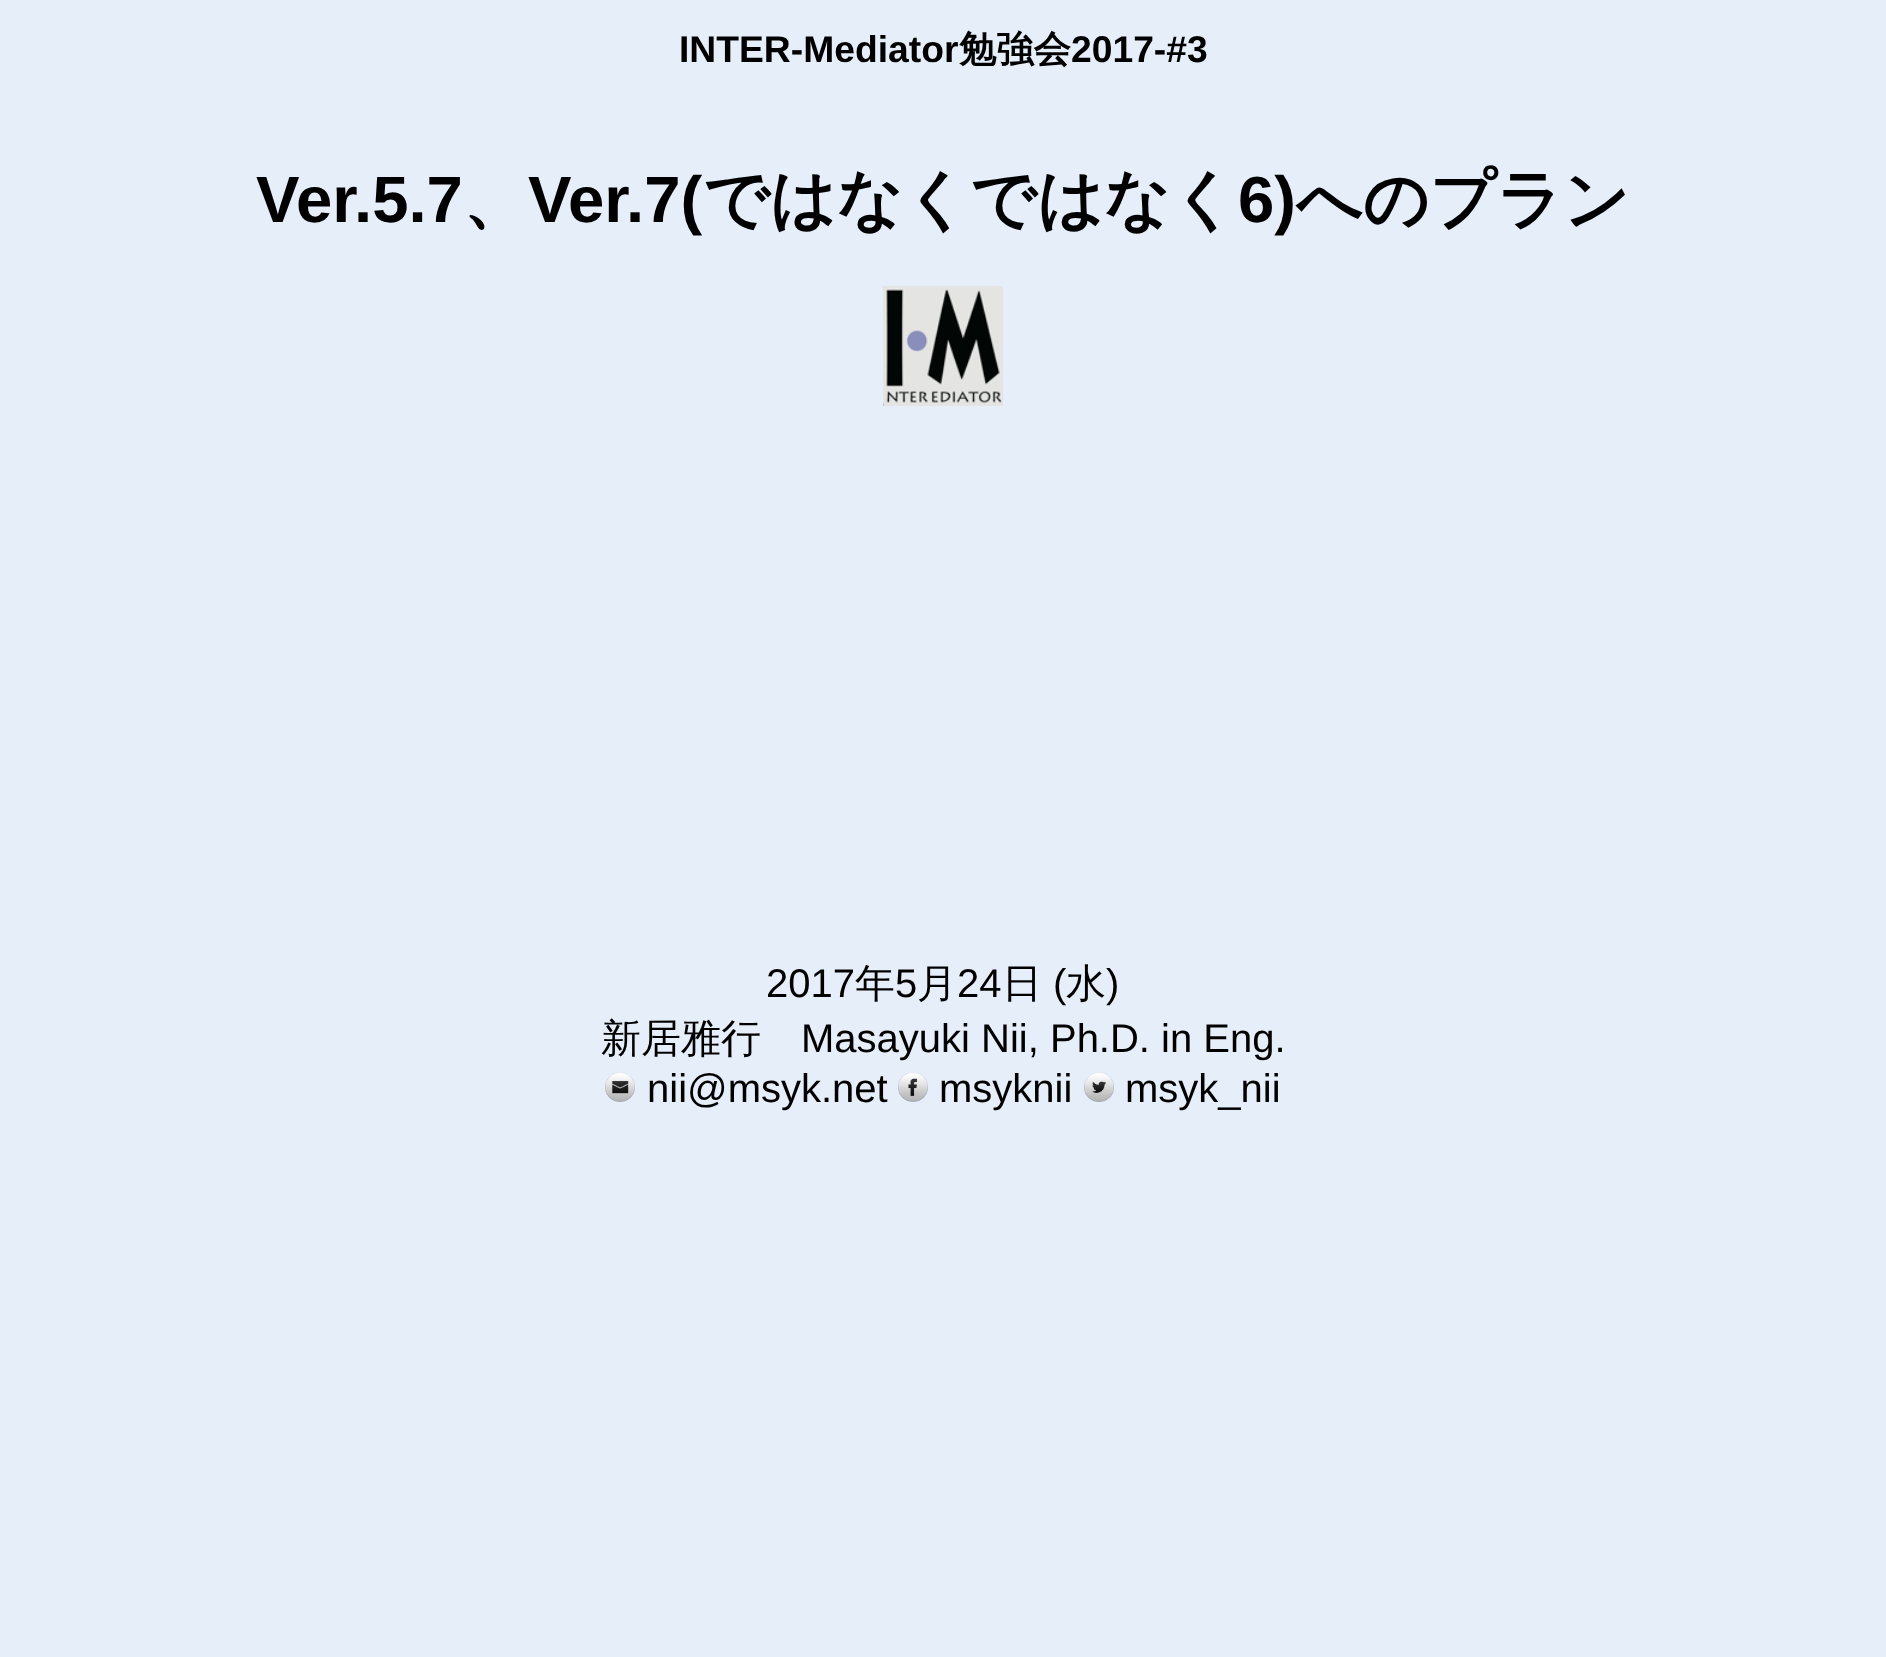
<!DOCTYPE html>
<meta charset="utf-8">
<style>body { margin: 0 } canvas { display: block }</style>
<canvas id="canvas" width="1886" height="1657"></canvas>
<img id="img1" src="img_01.png" hidden>
<img id="img2" src="img_02.png" hidden>
<img id="img3" src="img_03.png" hidden>
<img id="img4" src="img_04.png" hidden>
<script>
window.onload = function () {
	const canvas = document.getElementById("canvas");
	const ctx = canvas.getContext("2d");
	ctx.miterLimit = 4;
	ctx.fontKerning = "normal";
	function txt(s, x, y) {
		ctx.fillText(s, x, y);
	}
	function fill(x, y, w, h) {
		ctx.fillRect(x, y, w, h);
	}
	function img(id, x, y, w, h) {
		ctx.drawImage(document.getElementById(id), x, y, w, h);
	}

	ctx.fillStyle = "#E6EEFA";
	fill(0, 0, 1886, 1657);
	img("img1", 883, 286, 120, 120);
	img("img2", 605, 1072, 30, 30);
	img("img3", 898, 1072, 30, 30);
	img("img4", 1084, 1072, 30, 30);
	ctx.font = "bold 37.25px Liberation Sans";
	ctx.fillStyle = "#000000";
	txt("INTER-Mediator", 679, 62);
	ctx.font = "bold 37.25px WenQuanYi Zen Hei";
	txt("勉強会", 959, 62);
	ctx.font = "bold 37.25px Liberation Sans";
	txt("2017-#3", 1071, 62);
	ctx.font = "bold 65.25px Liberation Sans";
	txt("Ver.5.7", 256, 222);
	ctx.font = "bold 65.25px WenQuanYi Zen Hei";
	txt("、", 463, 222);
	ctx.font = "bold 65.25px Liberation Sans";
	txt("Ver.7(", 528, 222);
	ctx.font = "bold 65.25px WenQuanYi Zen Hei";
	txt("ではなくではなく", 703, 222);
	ctx.font = "bold 65.25px Liberation Sans";
	txt("6)", 1238, 222);
	ctx.font = "bold 65.25px WenQuanYi Zen Hei";
	txt("へのプラン", 1296, 222);
	ctx.font = "40px Liberation Sans";
	txt("2017", 766, 997);
	ctx.font = "500 40px WenQuanYi Zen Hei";
	txt("年", 855, 997);
	ctx.font = "40px Liberation Sans";
	txt("5", 895, 997);
	ctx.font = "500 40px WenQuanYi Zen Hei";
	txt("月", 917, 997);
	ctx.font = "40px Liberation Sans";
	txt("24", 957, 997);
	ctx.font = "500 40px WenQuanYi Zen Hei";
	txt("日", 1002, 997);
	ctx.font = "40px Liberation Sans";
	txt("(", 1053, 997);
	ctx.font = "500 40px WenQuanYi Zen Hei";
	txt("水", 1066, 997);
	ctx.font = "40px Liberation Sans";
	txt(")", 1106, 997);
	ctx.font = "500 40px WenQuanYi Zen Hei";
	txt("新居雅行", 601, 1052);
	ctx.font = "40px Liberation Sans";
	txt("Masayuki Nii, Ph.D. in Eng.", 801, 1052);
	txt("nii@msyk.net", 647, 1102);
	txt("msyknii", 939, 1102);
	txt("msyk_nii", 1125, 1102);
};
</script>
